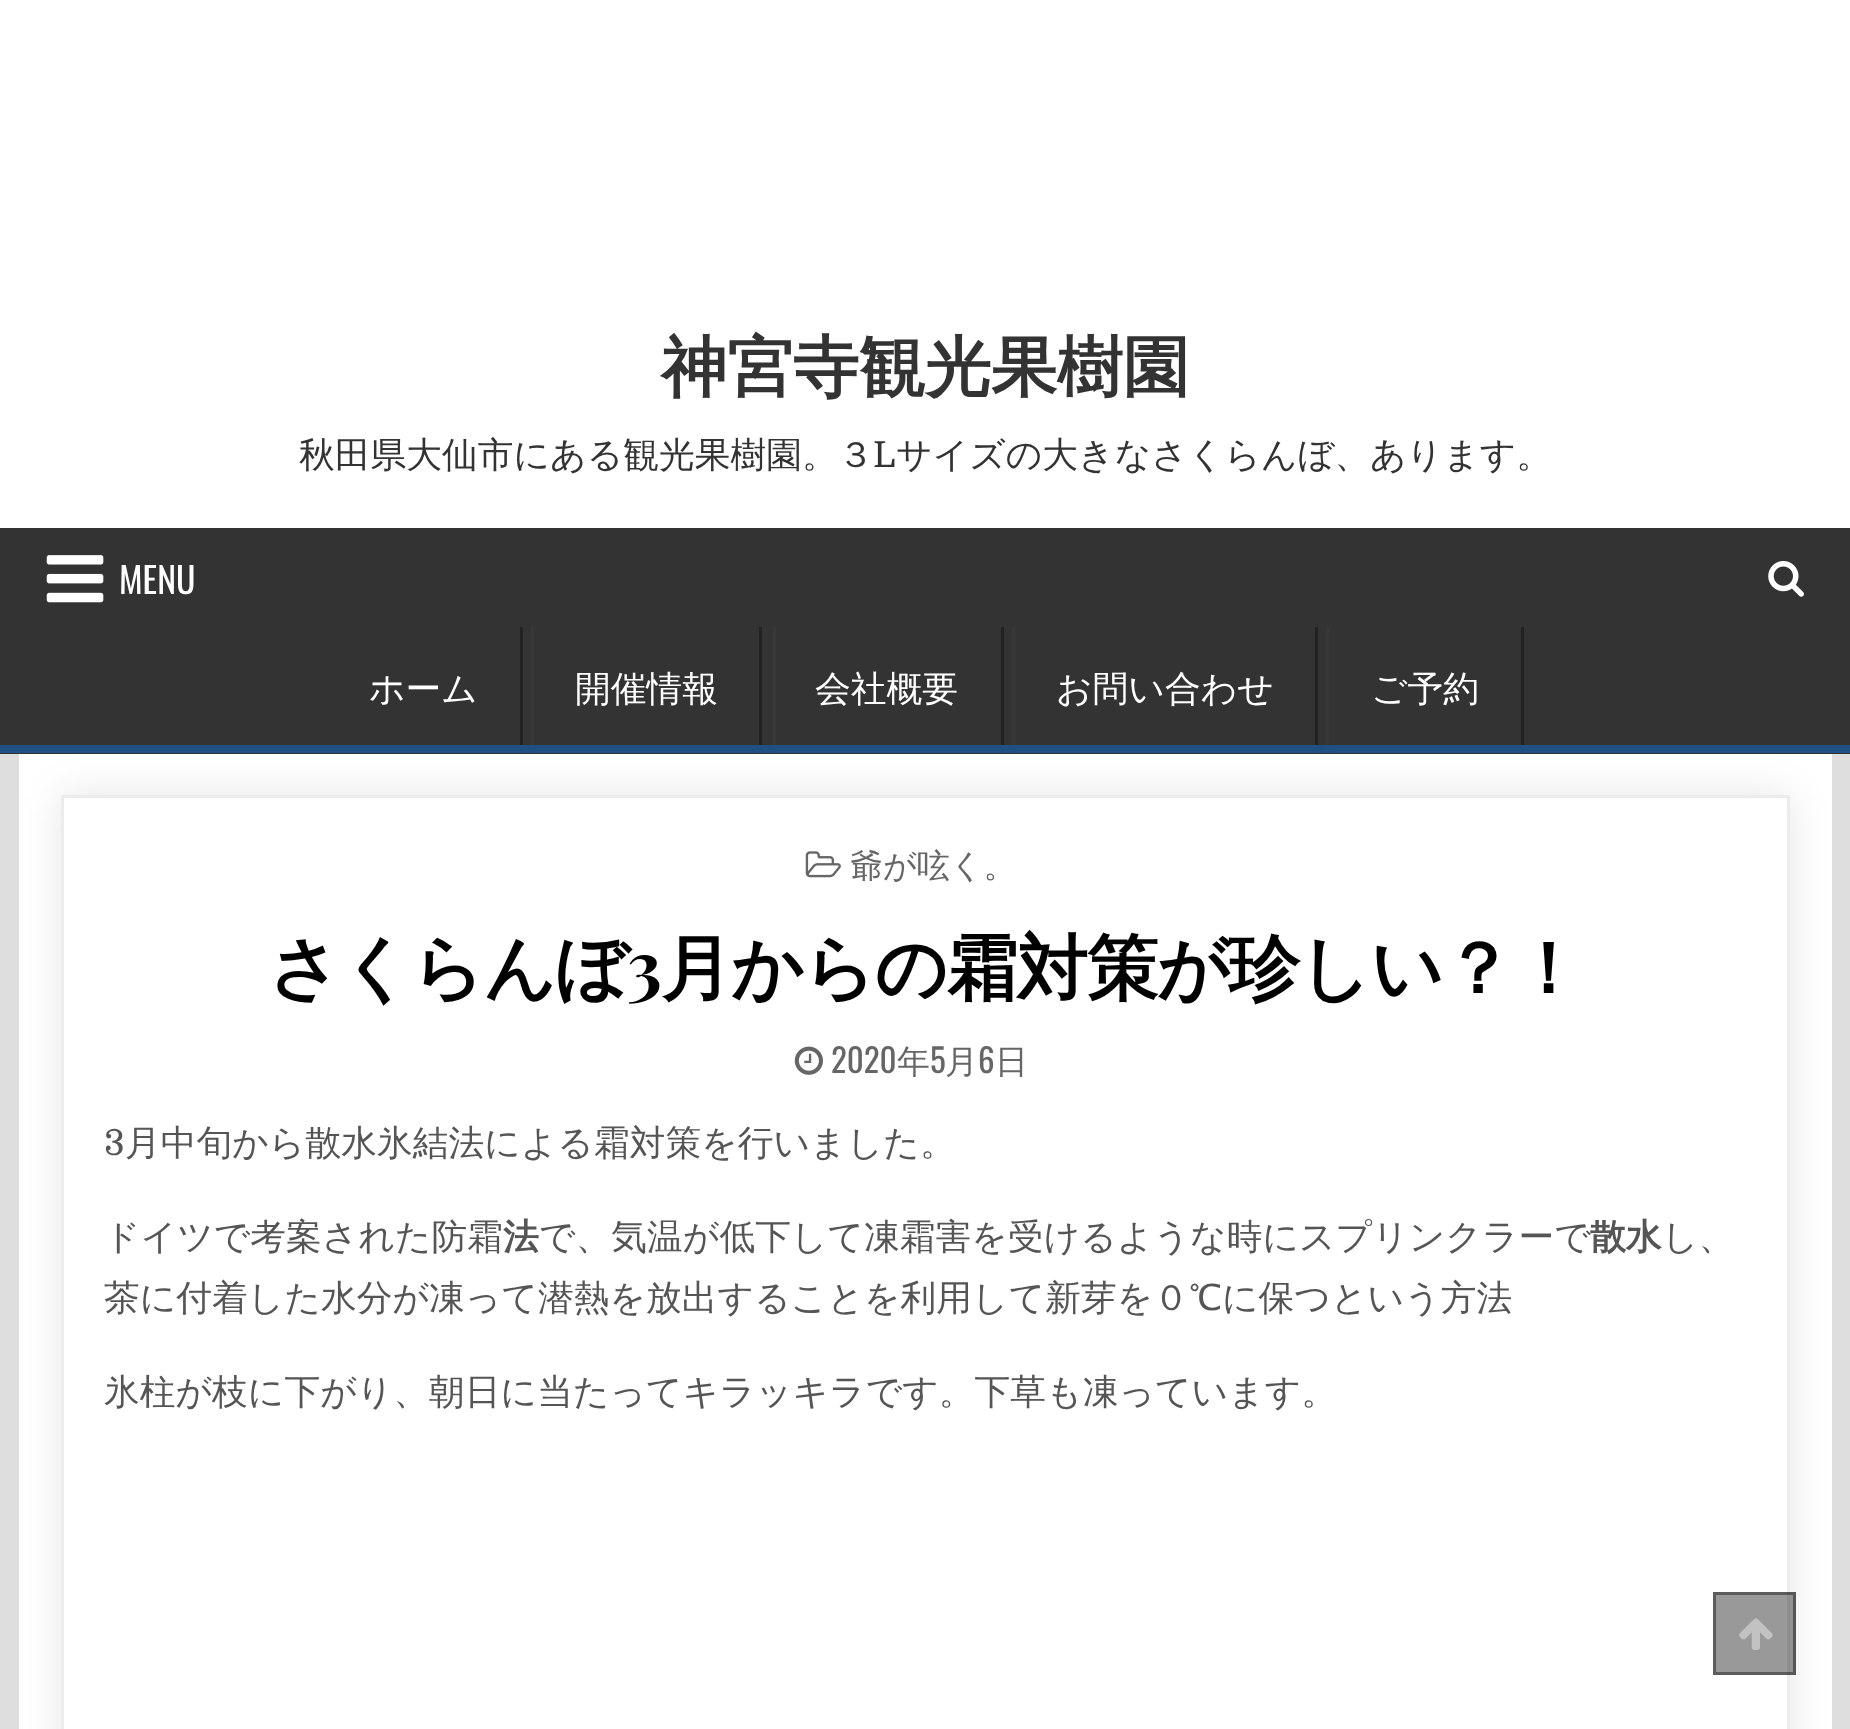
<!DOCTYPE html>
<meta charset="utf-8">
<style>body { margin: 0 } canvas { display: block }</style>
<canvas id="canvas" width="1850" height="1729"></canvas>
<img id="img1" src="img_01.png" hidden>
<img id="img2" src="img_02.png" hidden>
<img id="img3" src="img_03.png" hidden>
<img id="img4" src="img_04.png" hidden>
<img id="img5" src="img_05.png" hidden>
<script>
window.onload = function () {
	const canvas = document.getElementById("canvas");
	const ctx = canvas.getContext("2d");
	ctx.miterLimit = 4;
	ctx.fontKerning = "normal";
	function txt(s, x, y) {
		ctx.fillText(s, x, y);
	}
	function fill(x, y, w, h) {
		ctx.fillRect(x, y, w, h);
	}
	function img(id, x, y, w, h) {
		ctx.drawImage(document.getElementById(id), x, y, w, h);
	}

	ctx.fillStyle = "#DEDEDE";
	fill(0, 0, 1850, 1729);
	ctx.fillStyle = "#FFFFFF";
	fill(0, 0, 1850, 528);
	ctx.fillStyle = "#333333";
	fill(0, 528, 1850, 226);
	ctx.fillStyle = "#205081";
	fill(0, 745, 1850, 8);
	img("img1", 46, 555, 58, 48);
	img("img2", 1768, 561, 36, 36);
	ctx.fillStyle = "#222222";
	fill(520, 627, 3, 118);
	fill(759, 627, 3, 118);
	ctx.fillStyle = "#383838";
	fill(531, 627, 3, 118);
	ctx.fillStyle = "#222222";
	fill(1001, 627, 3, 118);
	ctx.fillStyle = "#383838";
	fill(773, 627, 3, 118);
	ctx.fillStyle = "#222222";
	fill(1315, 627, 3, 118);
	ctx.fillStyle = "#383838";
	fill(1012, 627, 3, 118);
	ctx.fillStyle = "#222222";
	fill(1521, 627, 3, 118);
	ctx.fillStyle = "#383838";
	fill(1326, 627, 3, 118);
	ctx.fillStyle = "#FFFFFF";
	fill(19, 754, 1813, 975);
	ctx.save();
	ctx.beginPath();
	ctx.moveTo(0, 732);
	ctx.lineTo(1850, 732);
	ctx.lineTo(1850, 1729);
	ctx.lineTo(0, 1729);
	ctx.closePath();
	ctx.moveTo(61, 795);
	ctx.lineTo(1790, 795);
	ctx.lineTo(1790, 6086);
	ctx.lineTo(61, 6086);
	ctx.closePath();
	ctx.clip("evenodd");
	ctx.fillStyle = "rgba(0, 0, 0, 0.1)";
	ctx.filter = "blur(20.5px)";
	ctx.beginPath();
	ctx.rect(61, 795, 1729, 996);
	ctx.fill();
	ctx.filter = "none";
	ctx.restore();
	ctx.strokeStyle = "#ECECEC";
	ctx.lineWidth = 3;
	ctx.strokeRect(62.5, 796.5, 1726, 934);
	img("img3", 805, 851, 36, 27);
	img("img4", 794, 1046, 29, 29);
	ctx.fillStyle = "rgba(0, 0, 0, 0.4)";
	fill(1713, 1592, 83, 83);
	ctx.strokeStyle = "rgba(0, 0, 0, 0.4)";
	ctx.strokeRect(1714.5, 1593.5, 80, 80);
	img("img5", 1739, 1618, 34, 32);
	ctx.font = "bold 66px WenQuanYi Zen Hei";
	ctx.fillStyle = "#333333";
	txt("神宮寺観光果樹園", 661, 390);
	ctx.font = "500 35.75px WenQuanYi Zen Hei";
	txt("秋田県大仙市にある観光果樹園。３", 299, 467);
	ctx.font = "35.75px Domine";
	txt("L", 873, 467);
	ctx.font = "500 35.75px WenQuanYi Zen Hei";
	txt("サイズの大きなさくらんぼ、あります。", 896, 467);
	ctx.font = "35.75px Oswald";
	ctx.fillStyle = "#FFFFFF";
	txt("MENU", 119, 594);
	ctx.font = "500 35.75px WenQuanYi Zen Hei";
	txt("ホーム", 369, 701);
	txt("開催情報", 575, 701);
	txt("会社概要", 815, 701);
	txt("お問い合わせ", 1056, 701);
	txt("ご予約", 1371, 701);
	ctx.font = "500 33px WenQuanYi Zen Hei";
	ctx.fillStyle = "#666666";
	txt("爺が呟く。", 850, 877);
	ctx.letterSpacing = "-1.4px";
	ctx.font = "bold 71.5px WenQuanYi Zen Hei";
	ctx.fillStyle = "#000000";
	txt("さくらんぼ", 268, 993);
	ctx.font = "bold 71.5px Playfair Display";
	txt("3", 627, 993);
	ctx.font = "bold 71.5px WenQuanYi Zen Hei";
	txt("月からの霜対策が珍しい？！", 661, 993);
	ctx.letterSpacing = "0px";
	ctx.font = "33px Oswald";
	ctx.fillStyle = "#666666";
	txt("2020", 831, 1073);
	ctx.font = "500 33px WenQuanYi Zen Hei";
	txt("年", 897, 1073);
	ctx.font = "33px Oswald";
	txt("5", 930, 1073);
	ctx.font = "500 33px WenQuanYi Zen Hei";
	txt("月", 945, 1073);
	ctx.font = "33px Oswald";
	txt("6", 978, 1073);
	ctx.font = "500 33px WenQuanYi Zen Hei";
	txt("日", 995, 1073);
	ctx.font = "35.75px Domine";
	ctx.fillStyle = "#555555";
	txt("3", 104, 1155);
	ctx.font = "500 35.75px WenQuanYi Zen Hei";
	txt("月中旬から散水氷結法による霜対策を行いました。", 125, 1155);
	txt("ドイツで考案された防霜", 104, 1249);
	ctx.font = "bold 35.75px WenQuanYi Zen Hei";
	txt("法", 503, 1249);
	ctx.font = "500 35.75px WenQuanYi Zen Hei";
	txt("で、気温が低下して凍霜害を受けるような時にスプリンクラーで", 539, 1249);
	ctx.font = "bold 35.75px WenQuanYi Zen Hei";
	txt("散水", 1590, 1249);
	ctx.font = "500 35.75px WenQuanYi Zen Hei";
	txt("し、", 1662, 1249);
	txt("茶に付着した水分が凍って潜熱を放出することを利用して新芽を０℃に保つという方法", 104, 1310);
	txt("氷柱が枝に下がり、朝日に当たってキラッキラです。下草も凍っています。", 104, 1404);
};
</script>
